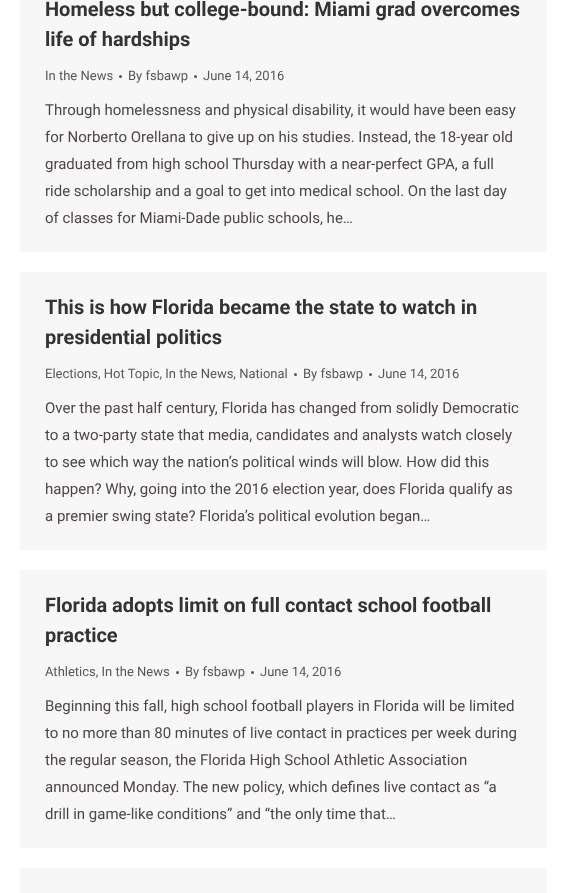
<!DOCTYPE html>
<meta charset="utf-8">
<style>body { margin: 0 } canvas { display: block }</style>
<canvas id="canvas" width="568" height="893"></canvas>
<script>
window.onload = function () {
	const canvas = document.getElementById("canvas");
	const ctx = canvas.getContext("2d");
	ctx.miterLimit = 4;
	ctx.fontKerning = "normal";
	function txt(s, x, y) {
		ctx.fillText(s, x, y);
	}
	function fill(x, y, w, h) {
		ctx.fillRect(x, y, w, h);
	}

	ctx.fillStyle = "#FFFFFF";
	fill(0, 0, 568, 893);
	ctx.fillStyle = "#F7F7F7";
	fill(20, 0, 527, 252);
	ctx.fillStyle = "#595656";
	ctx.beginPath();
	ctx.arc(120.5, 76.5, 1.5, 0, Math.PI * 2);
	ctx.fill();
	ctx.beginPath();
	ctx.arc(195.5, 76.5, 1.5, 0, Math.PI * 2);
	ctx.fill();
	ctx.fillStyle = "#F7F7F7";
	fill(20, 272, 527, 278);
	ctx.fillStyle = "#595656";
	ctx.beginPath();
	ctx.arc(295.5, 374.5, 1.5, 0, Math.PI * 2);
	ctx.fill();
	ctx.beginPath();
	ctx.arc(370.5, 374.5, 1.5, 0, Math.PI * 2);
	ctx.fill();
	ctx.fillStyle = "#F7F7F7";
	fill(20, 570, 527, 278);
	ctx.fillStyle = "#595656";
	ctx.beginPath();
	ctx.arc(177.5, 672.5, 1.5, 0, Math.PI * 2);
	ctx.fill();
	ctx.beginPath();
	ctx.arc(252.5, 672.5, 1.5, 0, Math.PI * 2);
	ctx.fill();
	ctx.fillStyle = "#F7F7F7";
	fill(20, 868, 527, 25);
	ctx.font = "bold 20px Roboto";
	ctx.fillStyle = "#333333";
	txt("Homeless but college-bound: Miami grad overcomes", 45, 16);
	txt("life of hardships", 45, 46);
	ctx.font = "13px Roboto";
	ctx.fillStyle = "#595656";
	txt("In the News", 45, 80);
	txt("By fsbawp", 128, 80);
	txt("June 14, 2016", 203, 80);
	ctx.font = "15px Roboto";
	ctx.fillStyle = "#4F4646";
	txt("Through homelessness and physical disability, it would have been easy", 45, 115);
	txt("for Norberto Orellana to give up on his studies. Instead, the 18-year old", 45, 142);
	txt("graduated from high school Thursday with a near-perfect GPA, a full", 45, 169);
	txt("ride scholarship and a goal to get into medical school. On the last day", 45, 196);
	txt("of classes for Miami-Dade public schools, he…", 45, 223);
	ctx.font = "bold 20px Roboto";
	ctx.fillStyle = "#333333";
	txt("This is how Florida became the state to watch in", 45, 314);
	txt("presidential politics", 45, 344);
	ctx.font = "13px Roboto";
	ctx.fillStyle = "#595656";
	txt("Elections, Hot Topic, In the News, National", 45, 378);
	txt("By fsbawp", 303, 378);
	txt("June 14, 2016", 378, 378);
	ctx.font = "15px Roboto";
	ctx.fillStyle = "#4F4646";
	txt("Over the past half century, Florida has changed from solidly Democratic", 45, 413);
	txt("to a two-party state that media, candidates and analysts watch closely", 45, 440);
	txt("to see which way the nation’s political winds will blow. How did this", 45, 467);
	txt("happen? Why, going into the 2016 election year, does Florida qualify as", 45, 494);
	txt("a premier swing state? Florida’s political evolution began…", 45, 521);
	ctx.font = "bold 20px Roboto";
	ctx.fillStyle = "#333333";
	txt("Florida adopts limit on full contact school football", 45, 612);
	txt("practice", 45, 642);
	ctx.font = "13px Roboto";
	ctx.fillStyle = "#595656";
	txt("Athletics, In the News", 45, 676);
	txt("By fsbawp", 185, 676);
	txt("June 14, 2016", 260, 676);
	ctx.font = "15px Roboto";
	ctx.fillStyle = "#4F4646";
	txt("Beginning this fall, high school football players in Florida will be limited", 45, 711);
	txt("to no more than 80 minutes of live contact in practices per week during", 45, 738);
	txt("the regular season, the Florida High School Athletic Association", 45, 765);
	txt("announced Monday. The new policy, which defines live contact as “a", 45, 792);
	txt("drill in game-like conditions” and “the only time that…", 45, 819);
};
</script>
